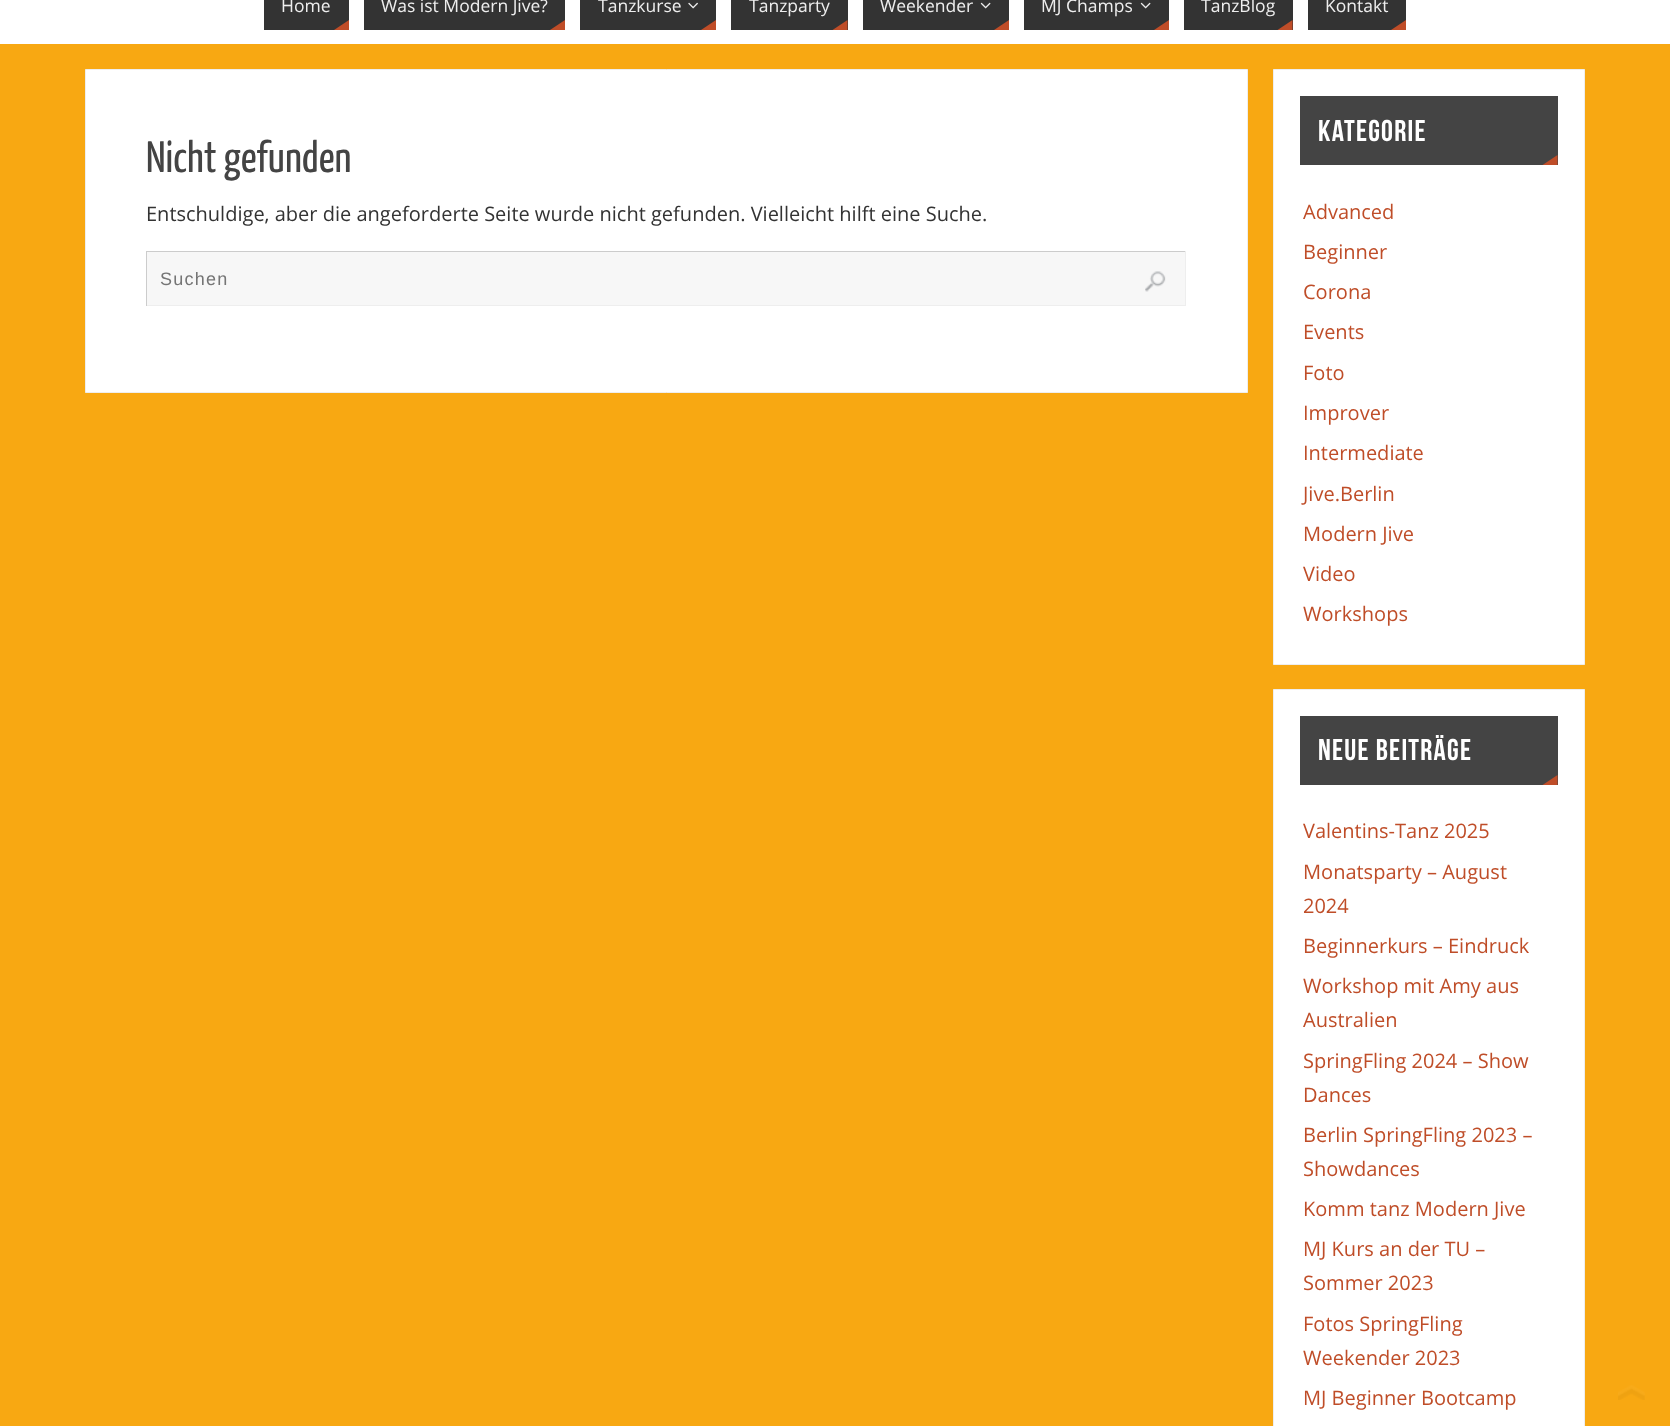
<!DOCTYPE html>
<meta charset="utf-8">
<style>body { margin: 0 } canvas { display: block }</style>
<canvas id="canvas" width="1670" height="1426"></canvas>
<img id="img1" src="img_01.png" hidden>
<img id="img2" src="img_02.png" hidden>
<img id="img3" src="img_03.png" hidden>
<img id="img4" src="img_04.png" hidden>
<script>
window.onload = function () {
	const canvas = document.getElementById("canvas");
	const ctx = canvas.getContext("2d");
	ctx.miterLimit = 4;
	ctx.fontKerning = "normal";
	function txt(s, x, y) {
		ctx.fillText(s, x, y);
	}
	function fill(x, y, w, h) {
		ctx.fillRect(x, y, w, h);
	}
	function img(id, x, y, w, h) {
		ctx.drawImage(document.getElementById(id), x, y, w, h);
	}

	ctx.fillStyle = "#F8A812";
	fill(0, 0, 1670, 1426);
	ctx.fillStyle = "#FFFFFF";
	fill(0, 0, 1670, 44);
	ctx.fillStyle = "#333333";
	fill(264, 0, 85, 30);
	ctx.fillStyle = "#BF4D28";
	ctx.beginPath();
	ctx.moveTo(349, 30);
	ctx.lineTo(334, 30);
	ctx.lineTo(349, 20);
	ctx.closePath();
	ctx.fill();
	ctx.fillStyle = "#333333";
	fill(364, 0, 201, 30);
	ctx.fillStyle = "#BF4D28";
	ctx.beginPath();
	ctx.moveTo(565, 30);
	ctx.lineTo(550, 30);
	ctx.lineTo(565, 20);
	ctx.closePath();
	ctx.fill();
	ctx.fillStyle = "#333333";
	fill(580, 0, 136, 30);
	img("img1", 688, 2, 10, 7);
	ctx.fillStyle = "#BF4D28";
	ctx.beginPath();
	ctx.moveTo(716, 30);
	ctx.lineTo(701, 30);
	ctx.lineTo(716, 20);
	ctx.closePath();
	ctx.fill();
	ctx.fillStyle = "#333333";
	fill(731, 0, 117, 30);
	ctx.fillStyle = "#BF4D28";
	ctx.beginPath();
	ctx.moveTo(847.5, 30);
	ctx.lineTo(832.5, 30);
	ctx.lineTo(847.5, 20);
	ctx.closePath();
	ctx.fill();
	ctx.fillStyle = "#333333";
	fill(863, 0, 146, 30);
	img("img2", 980, 2, 11, 7);
	ctx.fillStyle = "#BF4D28";
	ctx.beginPath();
	ctx.moveTo(1009, 30);
	ctx.lineTo(994, 30);
	ctx.lineTo(1009, 20);
	ctx.closePath();
	ctx.fill();
	ctx.fillStyle = "#333333";
	fill(1024, 0, 145, 30);
	img("img2", 1140, 2, 11, 7);
	ctx.fillStyle = "#BF4D28";
	ctx.beginPath();
	ctx.moveTo(1169, 30);
	ctx.lineTo(1154, 30);
	ctx.lineTo(1169, 20);
	ctx.closePath();
	ctx.fill();
	ctx.fillStyle = "#333333";
	fill(1184, 0, 109, 30);
	ctx.fillStyle = "#BF4D28";
	ctx.beginPath();
	ctx.moveTo(1292.5, 30);
	ctx.lineTo(1277.5, 30);
	ctx.lineTo(1292.5, 20);
	ctx.closePath();
	ctx.fill();
	ctx.fillStyle = "#333333";
	fill(1308, 0, 98, 30);
	ctx.fillStyle = "#BF4D28";
	ctx.beginPath();
	ctx.moveTo(1406, 30);
	ctx.lineTo(1391, 30);
	ctx.lineTo(1406, 20);
	ctx.closePath();
	ctx.fill();
	ctx.fillStyle = "#FFFFFF";
	ctx.beginPath();
	ctx.rect(85.5, 69.5, 1162, 323);
	ctx.fill();
	ctx.strokeStyle = "#EEEEEE";
	ctx.stroke();
	ctx.fillStyle = "#F7F7F7";
	fill(147, 252, 1038, 53);
	ctx.fillStyle = "#CCCCCC";
	fill(146, 251, 1040, 1);
	ctx.fillStyle = "#EEEEEE";
	fill(1185, 251, 1, 55);
	fill(146, 305, 1040, 1);
	ctx.fillStyle = "#CCCCCC";
	fill(146, 251, 1, 55);
	img("img3", 1145, 271, 21, 21);
	ctx.fillStyle = "#FFFFFF";
	ctx.beginPath();
	ctx.rect(1273.5, 69.5, 311, 595);
	ctx.fill();
	ctx.stroke();
	ctx.fillStyle = "#444444";
	fill(1300, 96, 258, 69);
	ctx.fillStyle = "#BF4D28";
	ctx.beginPath();
	ctx.moveTo(1557.5, 165);
	ctx.lineTo(1542.5, 165);
	ctx.lineTo(1557.5, 155);
	ctx.closePath();
	ctx.fill();
	ctx.fillStyle = "#FFFFFF";
	ctx.beginPath();
	ctx.rect(1273.5, 689.5, 311, 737);
	ctx.fill();
	ctx.stroke();
	ctx.fillStyle = "#444444";
	fill(1300, 716, 258, 69);
	ctx.fillStyle = "#BF4D28";
	ctx.beginPath();
	ctx.moveTo(1557.5, 785);
	ctx.lineTo(1542.5, 785);
	ctx.lineTo(1557.5, 775);
	ctx.closePath();
	ctx.fill();
	img("img4", 1618, 1385, 27, 15);
	ctx.font = "17.5px Open Sans";
	ctx.fillStyle = "#EEEEEE";
	txt("Home", 281, 12);
	txt("Was ist Modern Jive?", 381, 12);
	txt("Tanzkurse", 598, 12);
	txt("Tanzparty", 749, 12);
	txt("Weekender", 880, 12);
	txt("MJ Champs", 1041, 12);
	txt("TanzBlog", 1201, 12);
	txt("Kontakt", 1325, 12);
	ctx.font = "44px Yanone Kaffeesatz";
	ctx.fillStyle = "#444444";
	txt("Nicht gefunden", 146, 172);
	ctx.font = "20px Open Sans";
	ctx.fillStyle = "#333333";
	txt("Entschuldige, aber die angeforderte Seite wurde nicht gefunden. Vielleicht hilft eine Suche.", 146, 221);
	ctx.letterSpacing = "1.25px";
	ctx.font = "18px Liberation Sans";
	ctx.fillStyle = "#757575";
	txt("Suchen", 160, 285);
	ctx.font = "30px Bebas Neue";
	ctx.fillStyle = "#FFFFFF";
	txt("Kategorie", 1318, 141);
	ctx.letterSpacing = "0px";
	ctx.font = "20px Open Sans";
	ctx.fillStyle = "#BF4D28";
	txt("Advanced", 1303, 219);
	txt("Beginner", 1303, 259);
	txt("Corona", 1303, 299);
	txt("Events", 1303, 339);
	txt("Foto", 1303, 380);
	txt("Improver", 1303, 420);
	txt("Intermediate", 1303, 460);
	txt("Jive.Berlin", 1303, 501);
	txt("Modern Jive", 1303, 541);
	txt("Video", 1303, 581);
	txt("Workshops", 1303, 621);
	ctx.letterSpacing = "1.25px";
	ctx.font = "30px Bebas Neue";
	ctx.fillStyle = "#FFFFFF";
	txt("Neue Beiträge", 1318, 760);
	ctx.letterSpacing = "0px";
	ctx.font = "20px Open Sans";
	ctx.fillStyle = "#BF4D28";
	txt("Valentins-Tanz 2025", 1303, 838);
	txt("Monatsparty – August", 1303, 879);
	txt("2024", 1303, 913);
	txt("Beginnerkurs – Eindruck", 1303, 953);
	txt("Workshop mit Amy aus", 1303, 993);
	txt("Australien", 1303, 1027);
	txt("SpringFling 2024 – Show", 1303, 1068);
	txt("Dances", 1303, 1102);
	txt("Berlin SpringFling 2023 –", 1303, 1142);
	txt("Showdances", 1303, 1176);
	txt("Komm tanz Modern Jive", 1303, 1216);
	txt("MJ Kurs an der TU –", 1303, 1256);
	txt("Sommer 2023", 1303, 1290);
	txt("Fotos SpringFling", 1303, 1331);
	txt("Weekender 2023", 1303, 1365);
	txt("MJ Beginner Bootcamp", 1303, 1405);
};
</script>
